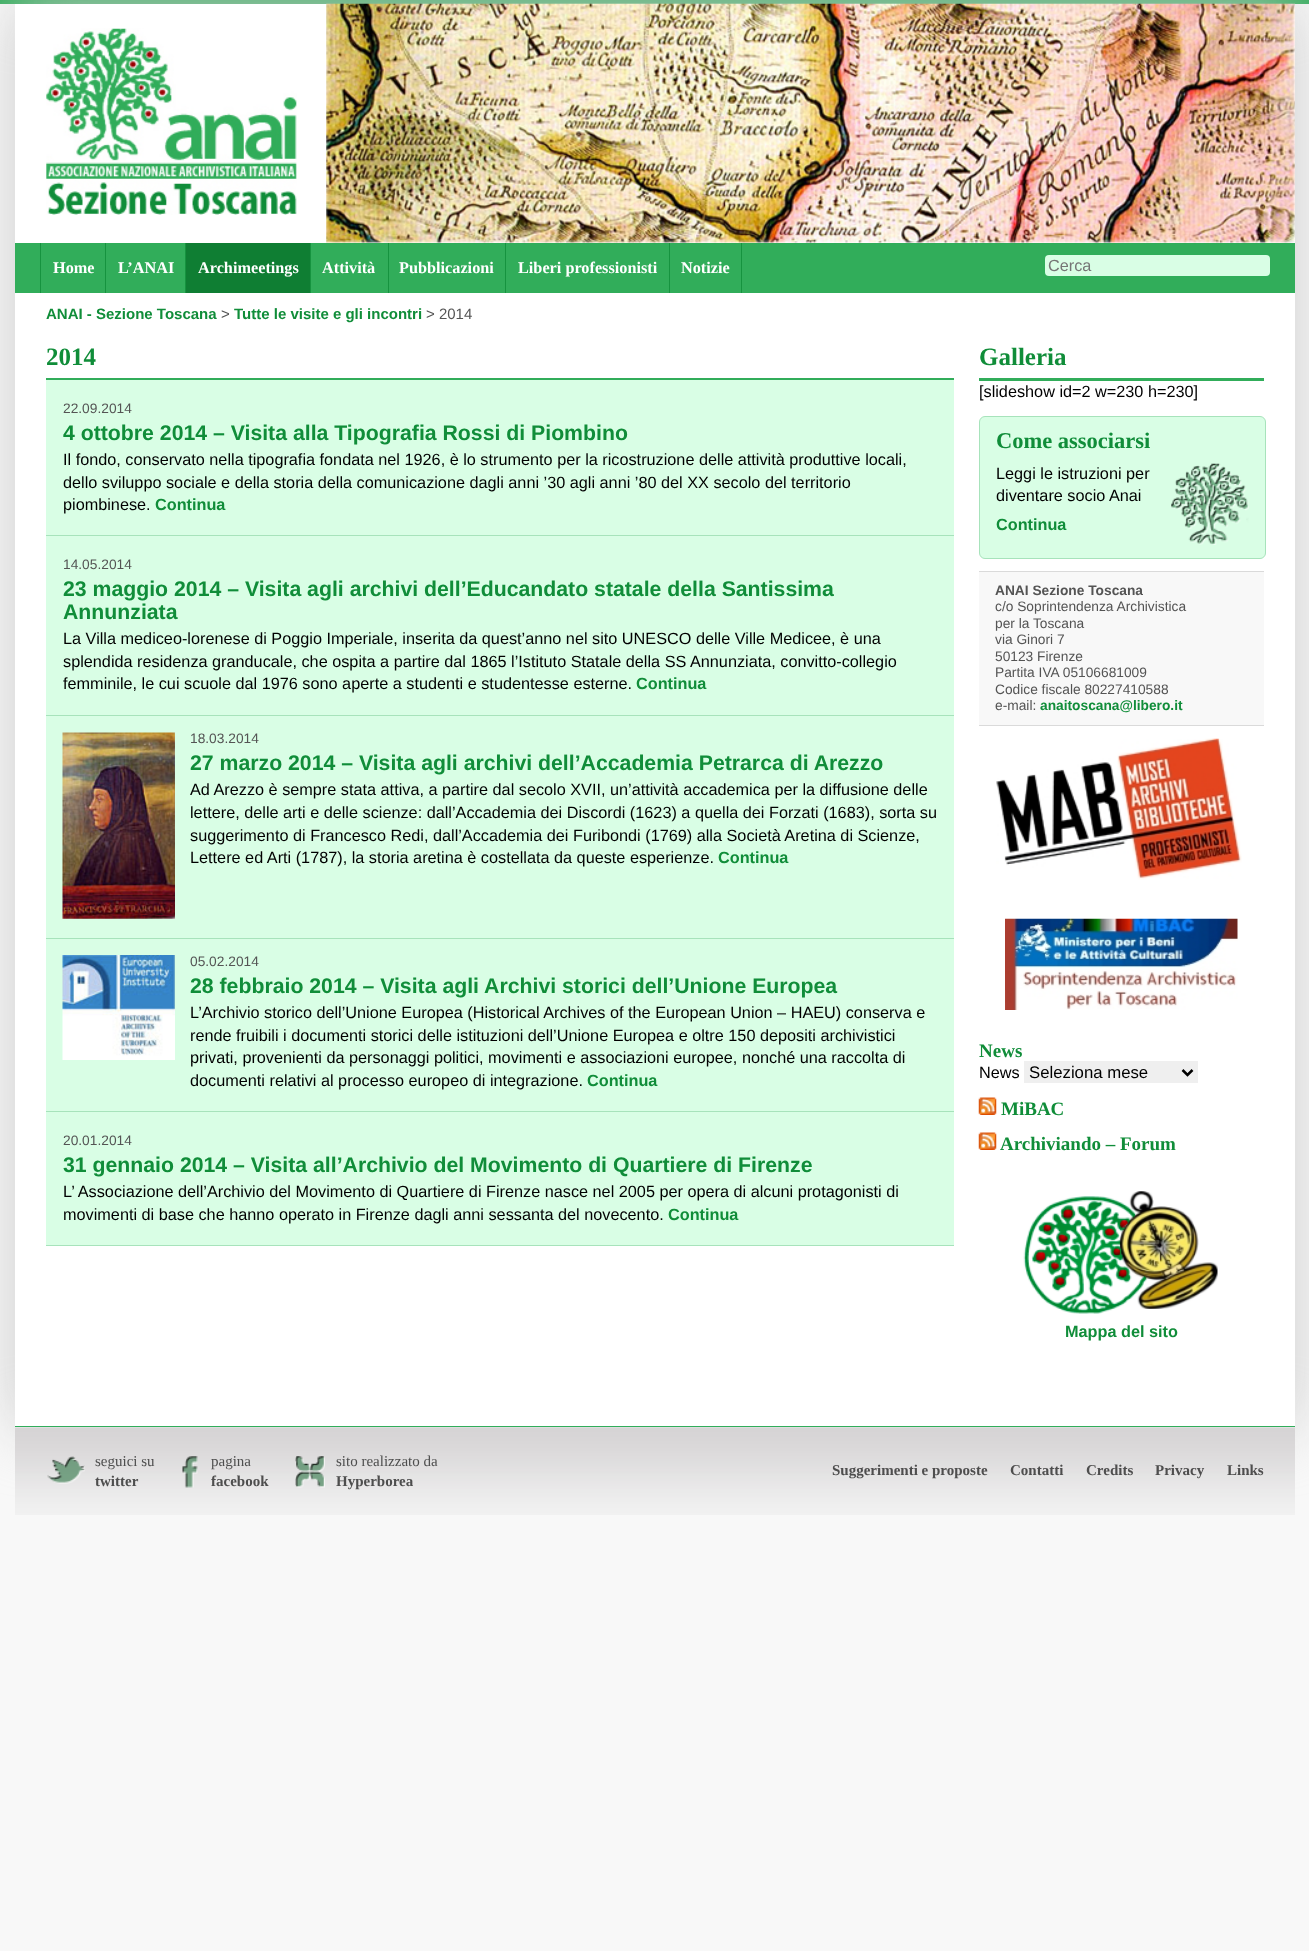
<!DOCTYPE html>
<meta charset="utf-8">
<style>body { margin: 0 } canvas { display: block }</style>
<canvas id="canvas" width="1309" height="1951"></canvas>
<img id="img1" src="img_01.png" hidden>
<img id="img2" src="img_02.png" hidden>
<img id="img3" src="img_03.png" hidden>
<img id="img4" src="img_04.png" hidden>
<img id="img5" src="img_05.png" hidden>
<img id="img6" src="img_06.png" hidden>
<img id="img7" src="img_07.png" hidden>
<img id="img8" src="img_08.png" hidden>
<img id="img9" src="img_09.png" hidden>
<img id="img10" src="img_10.png" hidden>
<img id="img11" src="img_11.png" hidden>
<img id="img12" src="img_12.png" hidden>
<img id="img13" src="img_13.png" hidden>
<script>
window.onload = function () {
	const canvas = document.getElementById("canvas");
	const ctx = canvas.getContext("2d");
	ctx.miterLimit = 4;
	ctx.fontKerning = "normal";
	function txt(s, x, y) {
		ctx.fillText(s, x, y);
	}
	function fill(x, y, w, h) {
		ctx.fillRect(x, y, w, h);
	}
	function round(x, y, w, h, r) {
		ctx.beginPath();
		ctx.roundRect(x, y, w, h, r);
		ctx.fill();
	}
	function img(id, x, y, w, h) {
		ctx.drawImage(document.getElementById(id), x, y, w, h);
	}

	ctx.fillStyle = "#F8F8F8";
	fill(0, 0, 1309, 1951);
	ctx.fillStyle = "#31AD5A";
	fill(0, 0, 1309, 4);
	ctx.fillStyle = "#FFFFFF";
	fill(15, 4, 1280, 1424);
	ctx.save();
	ctx.beginPath();
	ctx.moveTo(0, 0);
	ctx.lineTo(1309, 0);
	ctx.lineTo(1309, 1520);
	ctx.lineTo(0, 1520);
	ctx.closePath();
	ctx.moveTo(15, 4);
	ctx.lineTo(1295, 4);
	ctx.lineTo(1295, 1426);
	ctx.lineTo(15, 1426);
	ctx.closePath();
	ctx.clip("evenodd");
	ctx.fillStyle = "#CCCCCC";
	ctx.filter = "blur(31px)";
	ctx.beginPath();
	ctx.rect(15, 4, 1280, 1422);
	ctx.fill();
	ctx.filter = "none";
	ctx.restore();
	img("img1", 46, 28, 251, 187);
	img("img2", 326, 3, 969, 240);
	ctx.fillStyle = "#31AD5A";
	fill(15, 243, 1280, 50);
	ctx.fillStyle = "#16933F";
	fill(40, 243, 1, 50);
	fill(105, 243, 1, 50);
	fill(185, 243, 1, 50);
	ctx.fillStyle = "#0F7E33";
	fill(186, 243, 124, 50);
	ctx.fillStyle = "#16933F";
	fill(310, 243, 1, 50);
	fill(388, 243, 1, 50);
	fill(505, 243, 1, 50);
	fill(669, 243, 1, 50);
	fill(741, 243, 1, 50);
	ctx.fillStyle = "#D9FEE5";
	round(1045, 255, 225, 21, 4);
	ctx.fillStyle = "#31AD5A";
	fill(46, 378, 908, 2);
	ctx.fillStyle = "#D9FEE5";
	fill(46, 380, 908, 155);
	ctx.fillStyle = "#A7E3BB";
	fill(46, 535, 908, 1);
	ctx.fillStyle = "#D9FEE5";
	fill(46, 536, 908, 179);
	ctx.fillStyle = "#A7E3BB";
	fill(46, 715, 908, 1);
	ctx.fillStyle = "#D9FEE5";
	fill(46, 716, 908, 222);
	ctx.fillStyle = "#A7E3BB";
	fill(46, 938, 908, 1);
	img("img3", 62, 732, 113, 187);
	ctx.fillStyle = "#D9FEE5";
	fill(46, 939, 908, 306);
	ctx.fillStyle = "#A7E3BB";
	fill(46, 1111, 908, 1);
	img("img4", 62, 955, 113, 105);
	fill(46, 1245, 908, 1);
	ctx.fillStyle = "#31AD5A";
	fill(979, 378, 285, 3);
	ctx.fillStyle = "#D9FEE5";
	ctx.beginPath();
	ctx.roundRect(979.5, 416.5, 286, 142, 5.5);
	ctx.fill();
	ctx.strokeStyle = "#A7E3BB";
	ctx.stroke();
	img("img5", 1171, 463, 78, 82);
	ctx.fillStyle = "#F8F8F8";
	fill(979, 572, 285, 153);
	ctx.fillStyle = "#DADADA";
	fill(979, 571, 285, 1);
	fill(979, 725, 285, 1);
	img("img6", 996, 738, 246, 142);
	img("img7", 1005, 918, 233, 92);
	ctx.fillStyle = "#EFEFEF";
	fill(1024, 1061, 174, 22);
	ctx.beginPath();
	ctx.moveTo(1182.5, 1070);
	ctx.lineTo(1187.5, 1075);
	ctx.lineTo(1192.5, 1070);
	ctx.strokeStyle = "#000000";
	ctx.lineWidth = 2.5;
	ctx.stroke();
	img("img8", 978, 1097, 19, 18);
	img("img8", 978, 1132, 19, 18);
	img("img9", 1023, 1191, 195, 123);
	img("img10", 15, 1427, 1280, 88);
	ctx.fillStyle = "#31AD5A";
	fill(15, 1426, 1280, 1);
	img("img11", 47, 1456, 38, 28);
	img("img12", 182, 1456, 16, 32);
	img("img13", 295, 1456, 30, 32);
	ctx.font = "bold 16.25px Liberation Serif";
	ctx.fillStyle = "#FFFFFF";
	txt("Home", 53, 273);
	txt("L’ANAI", 118, 273);
	txt("Archimeetings", 198, 273);
	txt("Attività", 322, 273);
	txt("Pubblicazioni", 399, 273);
	txt("Liberi professionisti", 518, 273);
	txt("Notizie", 681, 273);
	ctx.font = "16.25px Liberation Sans";
	ctx.fillStyle = "#757575";
	txt("Cerca", 1048, 271);
	ctx.font = "bold 15px Liberation Sans";
	ctx.fillStyle = "#108D39";
	txt("ANAI - Sezione Toscana", 46, 319);
	ctx.font = "15px Liberation Sans";
	ctx.fillStyle = "#545454";
	txt(">", 221, 319);
	ctx.font = "bold 15px Liberation Sans";
	ctx.fillStyle = "#108D39";
	txt("Tutte le visite e gli incontri", 234, 319);
	ctx.font = "15px Liberation Sans";
	ctx.fillStyle = "#545454";
	txt("> 2014", 426, 319);
	ctx.font = "bold 25px Liberation Serif";
	ctx.fillStyle = "#108D39";
	txt("2014", 46, 365);
	ctx.font = "13.75px Liberation Sans";
	ctx.fillStyle = "#545454";
	txt("22.09.2014", 63, 413);
	ctx.font = "bold 21.25px Liberation Sans";
	ctx.fillStyle = "#108D39";
	txt("4 ottobre 2014 – Visita alla Tipografia Rossi di Piombino", 63, 440);
	ctx.font = "16.25px Liberation Sans";
	ctx.fillStyle = "#000000";
	txt("Il fondo, conservato nella tipografia fondata nel 1926, è lo strumento per la ricostruzione delle attività produttive locali,", 63, 465);
	txt("dello sviluppo sociale e della storia della comunicazione dagli anni ’30 agli anni ’80 del XX secolo del territorio", 63, 488);
	txt("piombinese.", 63, 510);
	ctx.font = "bold 16.25px Liberation Sans";
	ctx.fillStyle = "#108D39";
	txt("Continua", 155, 510);
	ctx.font = "13.75px Liberation Sans";
	ctx.fillStyle = "#545454";
	txt("14.05.2014", 63, 569);
	ctx.font = "bold 21.25px Liberation Sans";
	ctx.fillStyle = "#108D39";
	txt("23 maggio 2014 – Visita agli archivi dell’Educandato statale della Santissima", 63, 596);
	txt("Annunziata", 63, 619);
	ctx.font = "16.25px Liberation Sans";
	ctx.fillStyle = "#000000";
	txt("La Villa mediceo-lorenese di Poggio Imperiale, inserita da quest’anno nel sito UNESCO delle Ville Medicee, è una", 63, 644);
	txt("splendida residenza granducale, che ospita a partire dal 1865 l’Istituto Statale della SS Annunziata, convitto-collegio", 63, 667);
	txt("femminile, le cui scuole dal 1976 sono aperte a studenti e studentesse esterne.", 63, 689);
	ctx.font = "bold 16.25px Liberation Sans";
	ctx.fillStyle = "#108D39";
	txt("Continua", 636, 689);
	ctx.font = "13.75px Liberation Sans";
	ctx.fillStyle = "#545454";
	txt("18.03.2014", 190, 743);
	ctx.font = "bold 21.25px Liberation Sans";
	ctx.fillStyle = "#108D39";
	txt("27 marzo 2014 – Visita agli archivi dell’Accademia Petrarca di Arezzo", 190, 770);
	ctx.font = "16.25px Liberation Sans";
	ctx.fillStyle = "#000000";
	txt("Ad Arezzo è sempre stata attiva, a partire dal secolo XVII, un’attività accademica per la diffusione delle", 190, 795);
	txt("lettere, delle arti e delle scienze: dall’Accademia dei Discordi (1623) a quella dei Forzati (1683), sorta su", 190, 818);
	txt("suggerimento di Francesco Redi, dall’Accademia dei Furibondi (1769) alla Società Aretina di Scienze,", 190, 841);
	txt("Lettere ed Arti (1787), la storia aretina è costellata da queste esperienze.", 190, 863);
	ctx.font = "bold 16.25px Liberation Sans";
	ctx.fillStyle = "#108D39";
	txt("Continua", 718, 863);
	ctx.font = "13.75px Liberation Sans";
	ctx.fillStyle = "#545454";
	txt("05.02.2014", 190, 966);
	ctx.font = "bold 21.25px Liberation Sans";
	ctx.fillStyle = "#108D39";
	txt("28 febbraio 2014 – Visita agli Archivi storici dell’Unione Europea", 190, 993);
	ctx.font = "16.25px Liberation Sans";
	ctx.fillStyle = "#000000";
	txt("L’Archivio storico dell’Unione Europea (Historical Archives of the European Union – HAEU) conserva e", 190, 1018);
	txt("rende fruibili i documenti storici delle istituzioni dell’Unione Europea e oltre 150 depositi archivistici", 190, 1041);
	txt("privati, provenienti da personaggi politici, movimenti e associazioni europee, nonché una raccolta di", 190, 1063);
	txt("documenti relativi al processo europeo di integrazione.", 190, 1086);
	ctx.font = "bold 16.25px Liberation Sans";
	ctx.fillStyle = "#108D39";
	txt("Continua", 587, 1086);
	ctx.font = "13.75px Liberation Sans";
	ctx.fillStyle = "#545454";
	txt("20.01.2014", 63, 1145);
	ctx.font = "bold 21.25px Liberation Sans";
	ctx.fillStyle = "#108D39";
	txt("31 gennaio 2014 – Visita all’Archivio del Movimento di Quartiere di Firenze", 63, 1172);
	ctx.font = "16.25px Liberation Sans";
	ctx.fillStyle = "#000000";
	txt("L’ Associazione dell’Archivio del Movimento di Quartiere di Firenze nasce nel 2005 per opera di alcuni protagonisti di", 63, 1197);
	txt("movimenti di base che hanno operato in Firenze dagli anni sessanta del novecento.", 63, 1220);
	ctx.font = "bold 16.25px Liberation Sans";
	ctx.fillStyle = "#108D39";
	txt("Continua", 668, 1220);
	ctx.font = "bold 25px Liberation Serif";
	txt("Galleria", 979, 365);
	ctx.font = "16.25px Liberation Sans";
	ctx.fillStyle = "#000000";
	txt("[slideshow id=2 w=230 h=230]", 979, 397);
	ctx.font = "bold 22.5px Liberation Serif";
	ctx.fillStyle = "#108D39";
	txt("Come associarsi", 996, 448);
	ctx.font = "16.25px Liberation Sans";
	ctx.fillStyle = "#000000";
	txt("Leggi le istruzioni per", 996, 479);
	txt("diventare socio Anai", 996, 501);
	ctx.font = "bold 16.25px Liberation Sans";
	ctx.fillStyle = "#108D39";
	txt("Continua", 996, 530);
	ctx.font = "bold 13.75px Liberation Sans";
	ctx.fillStyle = "#545454";
	txt("ANAI Sezione Toscana", 995, 595);
	ctx.font = "13.75px Liberation Sans";
	txt("c/o Soprintendenza Archivistica", 995, 611);
	txt("per la Toscana", 995, 628);
	txt("via Ginori 7", 995, 644);
	txt("50123 Firenze", 995, 661);
	txt("Partita IVA 05106681009", 995, 677);
	txt("Codice fiscale 80227410588", 995, 694);
	txt("e-mail:", 995, 710);
	ctx.font = "bold 13.75px Liberation Sans";
	ctx.fillStyle = "#108D39";
	txt("anaitoscana@libero.it", 1040, 710);
	ctx.font = "bold 19px Liberation Serif";
	txt("News", 979, 1057);
	ctx.font = "16.25px Liberation Sans";
	ctx.fillStyle = "#000000";
	txt("News", 979, 1078);
	ctx.font = "16.75px Liberation Sans";
	txt("Seleziona mese", 1029, 1078);
	ctx.font = "bold 19px Liberation Serif";
	ctx.fillStyle = "#108D39";
	txt("MiBAC", 1001, 1115);
	txt("Archiviando – Forum", 1000, 1150);
	ctx.font = "bold 16.25px Liberation Sans";
	txt("Mappa del sito", 1065, 1337);
	ctx.font = "15px Liberation Serif";
	ctx.fillStyle = "#4E4E4E";
	txt("seguici su", 95, 1466);
	ctx.font = "bold 15px Liberation Serif";
	txt("twitter", 95, 1486);
	ctx.font = "15px Liberation Serif";
	txt("pagina", 211, 1466);
	ctx.font = "bold 15px Liberation Serif";
	txt("facebook", 211, 1486);
	ctx.font = "15px Liberation Serif";
	txt("sito realizzato da", 336, 1466);
	ctx.font = "bold 15px Liberation Serif";
	txt("Hyperborea", 336, 1486);
	txt("Suggerimenti e proposte", 832, 1475);
	txt("Contatti", 1010, 1475);
	txt("Credits", 1086, 1475);
	txt("Privacy", 1155, 1475);
	txt("Links", 1227, 1475);
};
</script>
